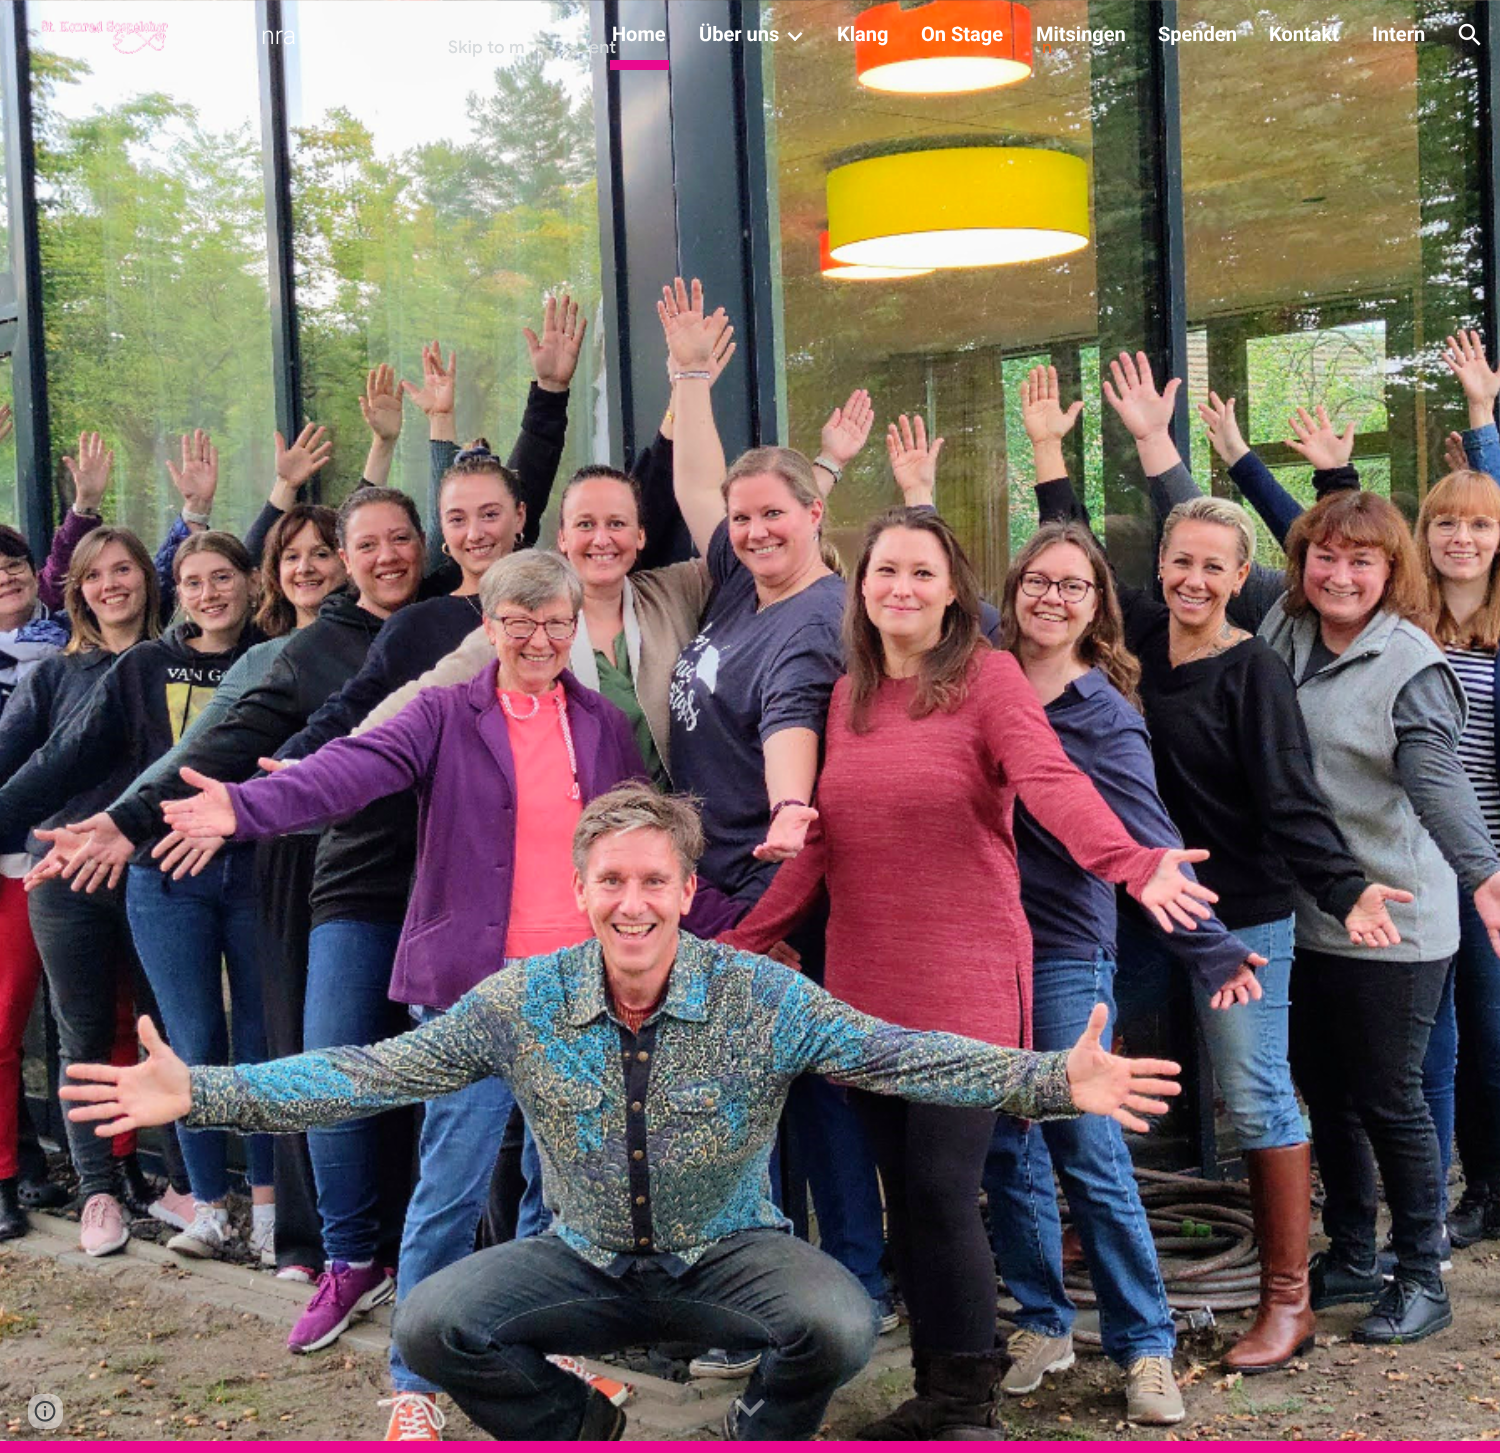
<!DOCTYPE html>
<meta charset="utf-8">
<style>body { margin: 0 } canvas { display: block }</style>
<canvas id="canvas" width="1500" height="1453"></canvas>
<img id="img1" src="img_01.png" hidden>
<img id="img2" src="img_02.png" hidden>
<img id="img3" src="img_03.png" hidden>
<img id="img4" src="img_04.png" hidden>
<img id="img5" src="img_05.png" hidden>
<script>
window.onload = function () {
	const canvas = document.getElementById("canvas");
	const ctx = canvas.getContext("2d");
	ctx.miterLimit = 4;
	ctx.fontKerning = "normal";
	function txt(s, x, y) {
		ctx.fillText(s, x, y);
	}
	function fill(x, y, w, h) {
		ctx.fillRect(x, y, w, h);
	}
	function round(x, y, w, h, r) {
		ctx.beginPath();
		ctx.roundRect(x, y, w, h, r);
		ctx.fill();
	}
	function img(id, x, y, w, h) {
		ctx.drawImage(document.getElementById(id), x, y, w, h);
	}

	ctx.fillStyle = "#FFFFFF";
	fill(0, 0, 1500, 1453);
	img("img1", 0, 0, 1500, 1441);
	ctx.fillStyle = "#EA088E";
	fill(0, 1441, 1500, 12);
	ctx.fillStyle = "rgba(255, 255, 255, 0.4)";
	ctx.beginPath();
	ctx.moveTo(738.5, 1398.5);
	ctx.lineTo(750, 1410);
	ctx.lineTo(761.5, 1398.5);
	ctx.lineTo(765, 1402);
	ctx.lineTo(750, 1417);
	ctx.lineTo(735, 1402);
	ctx.closePath();
	ctx.fill();
	img("img2", 41, 20, 127, 34);
	ctx.fillStyle = "#EA088E";
	fill(610, 60, 59, 10);
	img("img3", 787, 32, 16, 9);
	img("img4", 1458, 23, 23, 23);
	ctx.fillStyle = "rgba(255, 255, 255, 0.5)";
	round(28, 1394, 35, 35, 13);
	img("img5", 34, 1400, 22, 22);
	ctx.font = "300 25px Roboto";
	ctx.fillStyle = "#FFFFFF";
	txt("nra", 261, 44);
	ctx.font = "bold 20px Roboto";
	txt("Home", 612, 41);
	txt("Über uns", 699, 41);
	txt("Klang", 837, 41);
	txt("On Stage", 921, 41);
	txt("Mitsingen", 1036, 41);
	txt("Spenden", 1158, 41);
	txt("Kontakt", 1269, 41);
	txt("Intern", 1372, 41);
	ctx.letterSpacing = "0.25px";
	ctx.font = "500 17.5px Google Sans";
	ctx.fillStyle = "#D7DBDD";
	txt("Skip to m", 448, 53);
	txt("ent", 589, 53);
	ctx.fillStyle = "#F26822";
	txt("n", 1042, 53);
};
</script>
